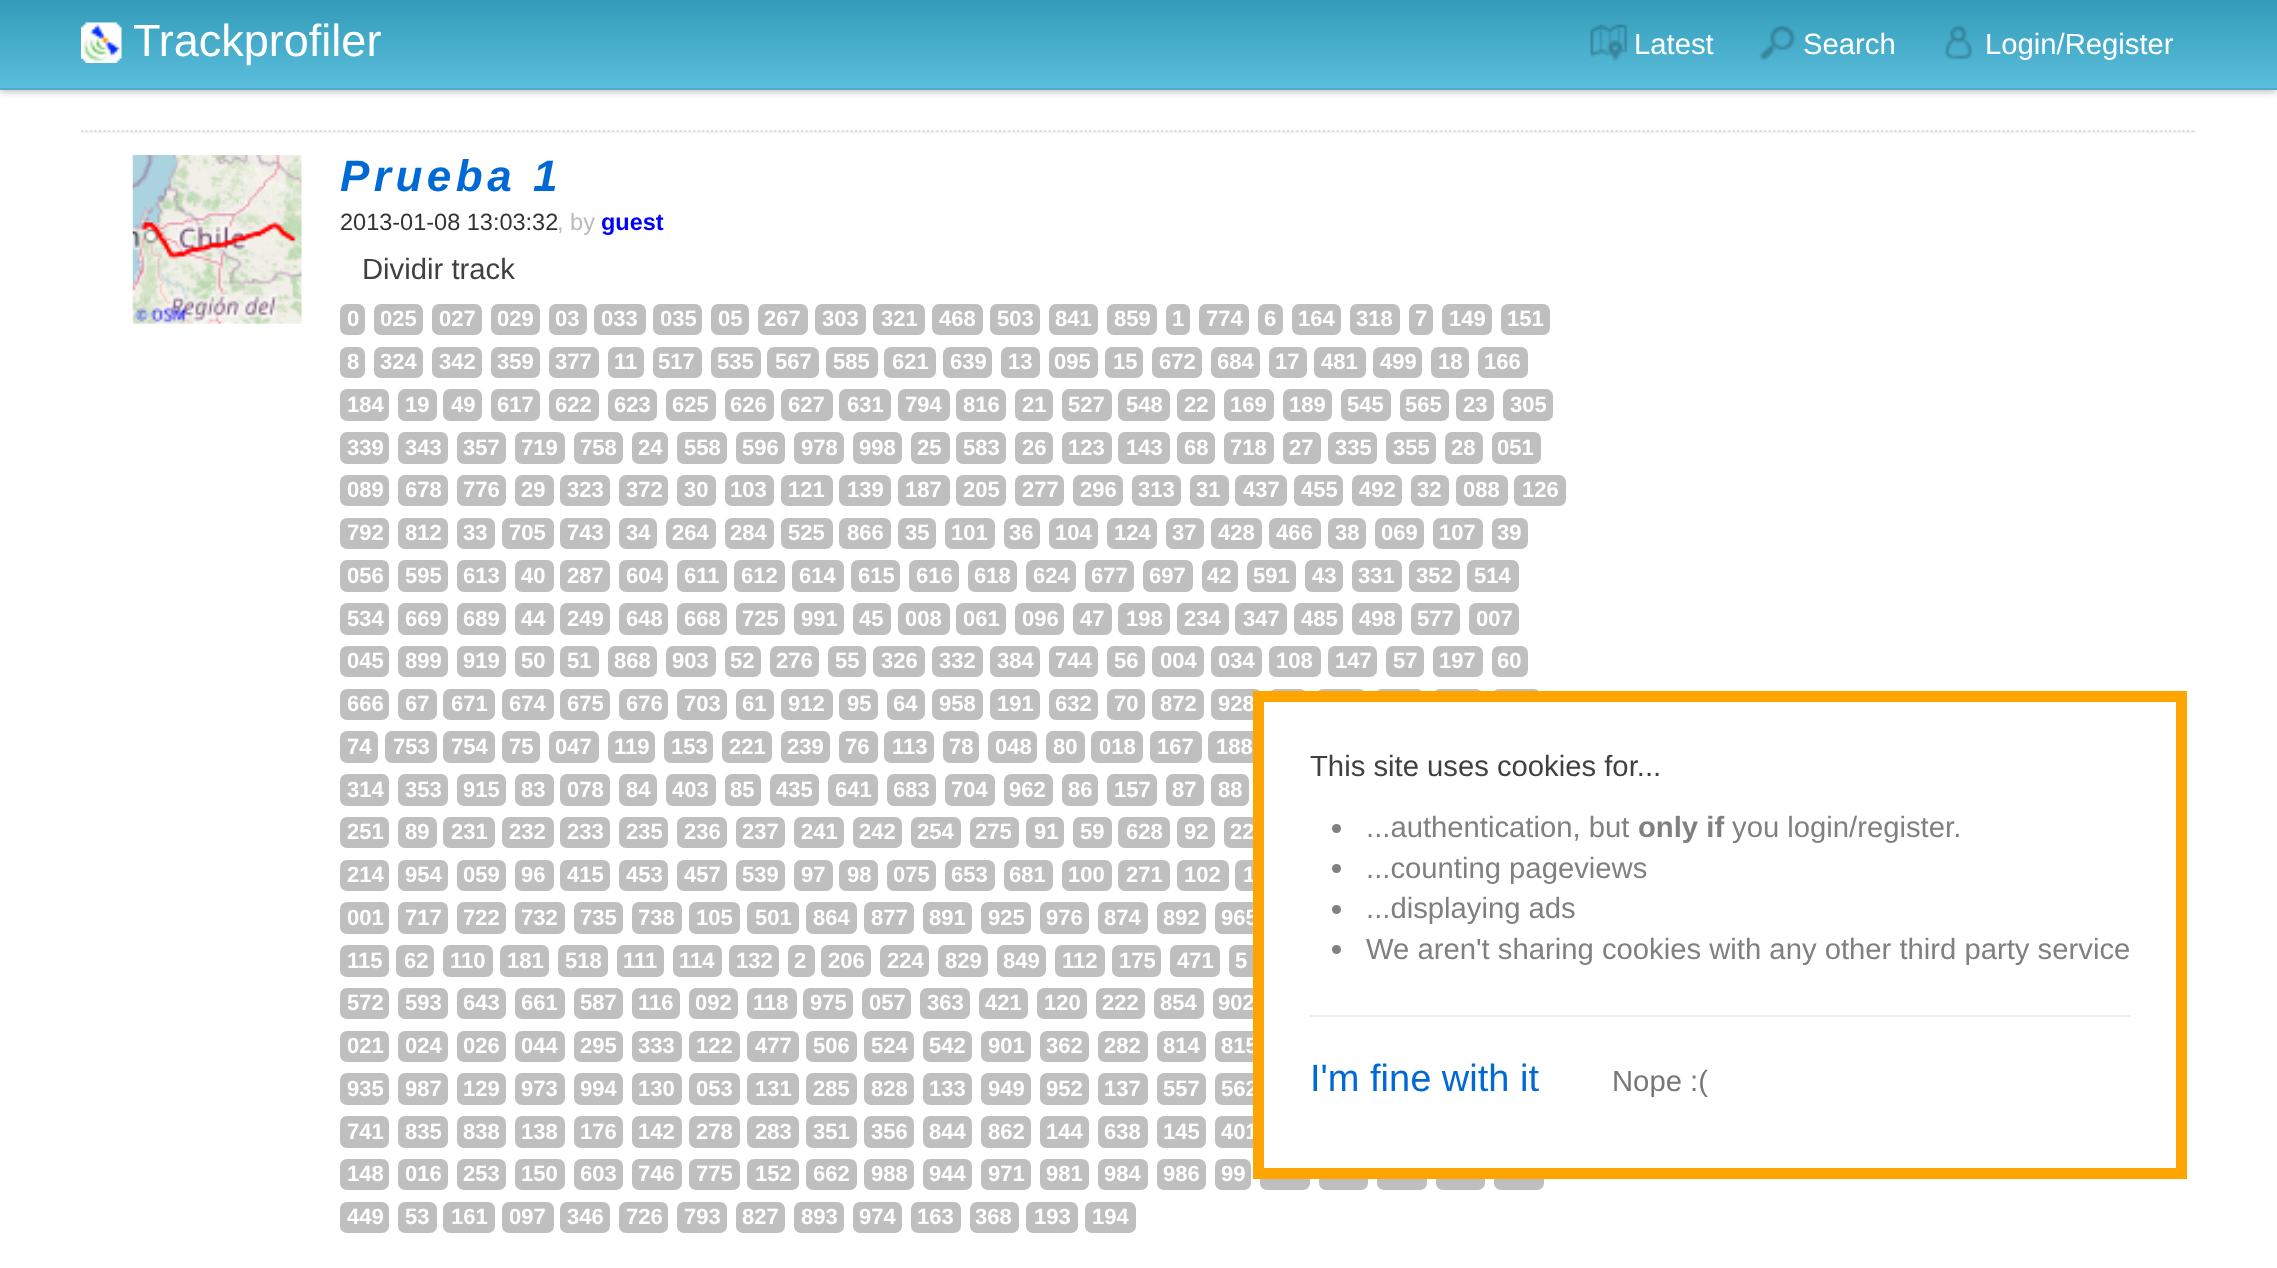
<!DOCTYPE html>
<meta charset="utf-8">
<style>body { margin: 0 } canvas { display: block }</style>
<canvas id="canvas" width="2277" height="1268"></canvas>
<img id="img1" src="img_01.png" hidden>
<img id="img2" src="img_02.png" hidden>
<img id="img3" src="img_03.png" hidden>
<img id="img4" src="img_04.png" hidden>
<img id="img5" src="img_05.png" hidden>
<img id="img6" src="img_06.png" hidden>
<script>
window.onload = function () {
	const canvas = document.getElementById("canvas");
	const ctx = canvas.getContext("2d");
	ctx.miterLimit = 4;
	ctx.fontKerning = "normal";
	function txt(s, x, y) {
		ctx.fillText(s, x, y);
	}
	function fill(x, y, w, h) {
		ctx.fillRect(x, y, w, h);
	}
	function round(x, y, w, h, r) {
		ctx.beginPath();
		ctx.roundRect(x, y, w, h, r);
		ctx.fill();
	}
	function img(id, x, y, w, h) {
		ctx.drawImage(document.getElementById(id), x, y, w, h);
	}
	let gradient;

	ctx.fillStyle = "#FFFFFF";
	fill(0, 0, 2277, 1268);
	ctx.fillStyle = "rgba(0, 0, 0, 0.25)";
	ctx.filter = "blur(3.5px)";
	ctx.beginPath();
	ctx.rect(0, 2, 2277, 90);
	ctx.fill();
	ctx.filter = "none";
	gradient = ctx.createLinearGradient(1139, 0, 1139, 90);
	gradient.addColorStop(0, "#339BB9");
	gradient.addColorStop(1, "#5ABFDD");
	ctx.fillStyle = gradient;
	fill(0, 0, 2277, 88);
	ctx.fillStyle = "#51ABC6";
	fill(0, 88, 2277, 2);
	img("img1", 81, 22, 41, 41);
	img("img2", 1590, 24, 38, 37);
	img("img3", 1759, 25, 37, 36);
	img("img4", 1944, 25, 29, 35);
	img("img5", 81, 130, 2115, 3);
	img("img6", 132, 155, 170, 169);
	ctx.fillStyle = "#BFBFBF";
	round(340, 304, 25, 31, 7);
	round(374, 304, 49, 31, 7);
	round(432, 304, 50, 31, 7);
	round(491, 304, 49, 31, 7);
	round(549, 304, 38, 31, 7);
	round(594, 304, 52, 31, 7);
	round(653, 304, 49, 31, 7);
	round(711, 304, 38, 31, 7);
	round(758, 304, 50, 31, 7);
	round(815, 304, 51, 31, 7);
	round(873, 304, 52, 31, 7);
	round(932, 304, 51, 31, 7);
	round(990, 304, 50, 31, 7);
	round(1049, 304, 49, 31, 7);
	round(1107, 304, 50, 31, 7);
	round(1166, 304, 24, 31, 7);
	round(1199, 304, 50, 31, 7);
	round(1258, 304, 25, 31, 7);
	round(1292, 304, 49, 31, 7);
	round(1350, 304, 50, 31, 7);
	round(1409, 304, 24, 31, 7);
	round(1442, 304, 50, 31, 7);
	round(1501, 304, 49, 31, 7);
	round(340, 347, 25, 31, 7);
	round(374, 347, 49, 31, 7);
	round(432, 347, 50, 31, 7);
	round(491, 347, 49, 31, 7);
	round(549, 347, 50, 31, 7);
	round(608, 347, 36, 31, 7);
	round(653, 347, 49, 31, 7);
	round(711, 347, 50, 31, 7);
	round(767, 347, 52, 31, 7);
	round(826, 347, 52, 31, 7);
	round(884, 347, 52, 31, 7);
	round(943, 347, 49, 31, 7);
	round(1001, 347, 39, 31, 7);
	round(1049, 347, 49, 31, 7);
	round(1105, 347, 38, 31, 7);
	round(1152, 347, 50, 31, 7);
	round(1211, 347, 49, 31, 7);
	round(1269, 347, 38, 31, 7);
	round(1314, 347, 52, 31, 7);
	round(1373, 347, 49, 31, 7);
	round(1431, 347, 38, 31, 7);
	round(1478, 347, 50, 31, 7);
	round(340, 389, 49, 32, 7);
	round(398, 389, 39, 32, 7);
	round(443, 389, 39, 32, 7);
	round(491, 389, 49, 32, 7);
	round(549, 389, 50, 32, 7);
	round(608, 389, 49, 32, 7);
	round(666, 389, 50, 32, 7);
	round(725, 389, 49, 32, 7);
	round(781, 389, 52, 32, 7);
	round(839, 389, 52, 32, 7);
	round(898, 389, 52, 32, 7);
	round(956, 389, 50, 32, 7);
	round(1015, 389, 38, 32, 7);
	round(1062, 389, 50, 32, 7);
	round(1118, 389, 52, 32, 7);
	round(1177, 389, 38, 32, 7);
	round(1224, 389, 50, 32, 7);
	round(1283, 389, 49, 32, 7);
	round(1341, 389, 50, 32, 7);
	round(1400, 389, 49, 32, 7);
	round(1456, 389, 38, 32, 7);
	round(1503, 389, 50, 32, 7);
	round(340, 432, 49, 32, 7);
	round(398, 432, 50, 32, 7);
	round(457, 432, 49, 32, 7);
	round(515, 432, 50, 32, 7);
	round(574, 432, 49, 32, 7);
	round(632, 432, 36, 32, 7);
	round(677, 432, 50, 32, 7);
	round(736, 432, 49, 32, 7);
	round(794, 432, 50, 32, 7);
	round(853, 432, 49, 32, 7);
	round(911, 432, 39, 32, 7);
	round(956, 432, 50, 32, 7);
	round(1015, 432, 38, 32, 7);
	round(1062, 432, 50, 32, 7);
	round(1118, 432, 52, 32, 7);
	round(1177, 432, 38, 32, 7);
	round(1224, 432, 50, 32, 7);
	round(1283, 432, 38, 32, 7);
	round(1328, 432, 49, 32, 7);
	round(1386, 432, 50, 32, 7);
	round(1445, 432, 38, 32, 7);
	round(1492, 432, 49, 32, 7);
	round(340, 475, 49, 31, 7);
	round(398, 475, 50, 31, 7);
	round(457, 475, 49, 31, 7);
	round(515, 475, 39, 31, 7);
	round(560, 475, 50, 31, 7);
	round(619, 475, 49, 31, 7);
	round(677, 475, 39, 31, 7);
	round(725, 475, 49, 31, 7);
	round(781, 475, 52, 31, 7);
	round(839, 475, 52, 31, 7);
	round(898, 475, 52, 31, 7);
	round(956, 475, 50, 31, 7);
	round(1015, 475, 49, 31, 7);
	round(1073, 475, 50, 31, 7);
	round(1132, 475, 49, 31, 7);
	round(1190, 475, 39, 31, 7);
	round(1235, 475, 52, 31, 7);
	round(1294, 475, 49, 31, 7);
	round(1352, 475, 50, 31, 7);
	round(1411, 475, 38, 31, 7);
	round(1456, 475, 52, 31, 7);
	round(1514, 475, 52, 31, 7);
	round(340, 518, 49, 31, 7);
	round(398, 518, 50, 31, 7);
	round(457, 518, 38, 31, 7);
	round(502, 518, 52, 31, 7);
	round(560, 518, 50, 31, 7);
	round(619, 518, 38, 31, 7);
	round(666, 518, 50, 31, 7);
	round(725, 518, 49, 31, 7);
	round(781, 518, 52, 31, 7);
	round(839, 518, 52, 31, 7);
	round(898, 518, 38, 31, 7);
	round(945, 518, 50, 31, 7);
	round(1004, 518, 36, 31, 7);
	round(1049, 518, 49, 31, 7);
	round(1107, 518, 50, 31, 7);
	round(1166, 518, 38, 31, 7);
	round(1211, 518, 51, 31, 7);
	round(1269, 518, 52, 31, 7);
	round(1328, 518, 38, 31, 7);
	round(1375, 518, 49, 31, 7);
	round(1433, 518, 50, 31, 7);
	round(1492, 518, 36, 31, 7);
	round(340, 560, 49, 32, 7);
	round(398, 560, 50, 32, 7);
	round(457, 560, 49, 32, 7);
	round(515, 560, 39, 32, 7);
	round(560, 560, 50, 32, 7);
	round(619, 560, 49, 32, 7);
	round(677, 560, 50, 32, 7);
	round(734, 560, 51, 32, 7);
	round(792, 560, 52, 32, 7);
	round(851, 560, 49, 32, 7);
	round(909, 560, 50, 32, 7);
	round(968, 560, 49, 32, 7);
	round(1026, 560, 50, 32, 7);
	round(1085, 560, 49, 32, 7);
	round(1143, 560, 50, 32, 7);
	round(1202, 560, 36, 32, 7);
	round(1247, 560, 49, 32, 7);
	round(1305, 560, 38, 32, 7);
	round(1352, 560, 50, 32, 7);
	round(1409, 560, 51, 32, 7);
	round(1467, 560, 52, 32, 7);
	round(340, 603, 49, 32, 7);
	round(398, 603, 50, 32, 7);
	round(457, 603, 49, 32, 7);
	round(515, 603, 39, 32, 7);
	round(560, 603, 50, 32, 7);
	round(619, 603, 49, 32, 7);
	round(677, 603, 50, 32, 7);
	round(736, 603, 49, 32, 7);
	round(794, 603, 50, 32, 7);
	round(853, 603, 38, 32, 7);
	round(898, 603, 52, 32, 7);
	round(956, 603, 50, 32, 7);
	round(1015, 603, 49, 32, 7);
	round(1073, 603, 39, 32, 7);
	round(1118, 603, 52, 32, 7);
	round(1177, 603, 52, 32, 7);
	round(1235, 603, 52, 32, 7);
	round(1294, 603, 49, 32, 7);
	round(1352, 603, 50, 32, 7);
	round(1411, 603, 49, 32, 7);
	round(1469, 603, 50, 32, 7);
	round(340, 646, 49, 31, 7);
	round(398, 646, 50, 31, 7);
	round(457, 646, 49, 31, 7);
	round(515, 646, 39, 31, 7);
	round(560, 646, 39, 31, 7);
	round(608, 646, 49, 31, 7);
	round(666, 646, 50, 31, 7);
	round(725, 646, 36, 31, 7);
	round(770, 646, 49, 31, 7);
	round(828, 646, 38, 31, 7);
	round(873, 646, 52, 31, 7);
	round(932, 646, 51, 31, 7);
	round(990, 646, 50, 31, 7);
	round(1049, 646, 49, 31, 7);
	round(1107, 646, 38, 31, 7);
	round(1152, 646, 52, 31, 7);
	round(1211, 646, 51, 31, 7);
	round(1269, 646, 52, 31, 7);
	round(1328, 646, 49, 31, 7);
	round(1386, 646, 38, 31, 7);
	round(1433, 646, 50, 31, 7);
	round(1492, 646, 36, 31, 7);
	round(340, 689, 49, 31, 7);
	round(398, 689, 39, 31, 7);
	round(443, 689, 52, 31, 7);
	round(502, 689, 52, 31, 7);
	round(560, 689, 50, 31, 7);
	round(619, 689, 49, 31, 7);
	round(677, 689, 50, 31, 7);
	round(736, 689, 38, 31, 7);
	round(781, 689, 52, 31, 7);
	round(839, 689, 39, 31, 7);
	round(887, 689, 38, 31, 7);
	round(932, 689, 51, 31, 7);
	round(990, 689, 50, 31, 7);
	round(1049, 689, 49, 31, 7);
	round(1107, 689, 38, 31, 7);
	round(1152, 689, 52, 31, 7);
	round(1211, 689, 51, 31, 7);
	round(1269, 689, 38, 31, 7);
	round(1316, 689, 50, 31, 7);
	round(1375, 689, 49, 31, 7);
	round(1433, 689, 50, 31, 7);
	round(1492, 689, 49, 31, 7);
	round(340, 731, 38, 32, 7);
	round(385, 731, 52, 32, 7);
	round(443, 731, 52, 32, 7);
	round(502, 731, 38, 32, 7);
	round(549, 731, 50, 32, 7);
	round(608, 731, 47, 32, 7);
	round(664, 731, 49, 32, 7);
	round(722, 731, 50, 32, 7);
	round(781, 731, 49, 32, 7);
	round(839, 731, 39, 32, 7);
	round(884, 731, 50, 32, 7);
	round(943, 731, 36, 32, 7);
	round(988, 731, 49, 32, 7);
	round(1046, 731, 39, 32, 7);
	round(1091, 731, 52, 32, 7);
	round(1150, 731, 52, 32, 7);
	round(1208, 731, 52, 32, 7);
	round(340, 774, 49, 32, 7);
	round(398, 774, 50, 32, 7);
	round(457, 774, 49, 32, 7);
	round(515, 774, 39, 32, 7);
	round(560, 774, 50, 32, 7);
	round(619, 774, 38, 32, 7);
	round(666, 774, 50, 32, 7);
	round(725, 774, 36, 32, 7);
	round(770, 774, 49, 32, 7);
	round(828, 774, 50, 32, 7);
	round(887, 774, 49, 32, 7);
	round(945, 774, 50, 32, 7);
	round(1004, 774, 49, 32, 7);
	round(1062, 774, 36, 32, 7);
	round(1107, 774, 50, 32, 7);
	round(1166, 774, 38, 32, 7);
	round(1211, 774, 38, 32, 7);
	round(340, 817, 49, 31, 7);
	round(398, 817, 39, 31, 7);
	round(443, 817, 52, 31, 7);
	round(502, 817, 52, 31, 7);
	round(560, 817, 50, 31, 7);
	round(619, 817, 49, 31, 7);
	round(677, 817, 50, 31, 7);
	round(736, 817, 49, 31, 7);
	round(794, 817, 50, 31, 7);
	round(853, 817, 49, 31, 7);
	round(911, 817, 50, 31, 7);
	round(970, 817, 49, 31, 7);
	round(1026, 817, 38, 31, 7);
	round(1073, 817, 39, 31, 7);
	round(1118, 817, 52, 31, 7);
	round(1177, 817, 38, 31, 7);
	round(1224, 817, 50, 31, 7);
	round(340, 860, 49, 31, 7);
	round(398, 860, 50, 31, 7);
	round(457, 860, 49, 31, 7);
	round(515, 860, 39, 31, 7);
	round(560, 860, 50, 31, 7);
	round(619, 860, 49, 31, 7);
	round(677, 860, 50, 31, 7);
	round(736, 860, 49, 31, 7);
	round(794, 860, 39, 31, 7);
	round(839, 860, 39, 31, 7);
	round(887, 860, 49, 31, 7);
	round(945, 860, 50, 31, 7);
	round(1004, 860, 49, 31, 7);
	round(1062, 860, 50, 31, 7);
	round(1118, 860, 52, 31, 7);
	round(1177, 860, 52, 31, 7);
	round(1235, 860, 52, 31, 7);
	round(340, 902, 49, 32, 7);
	round(398, 902, 50, 32, 7);
	round(457, 902, 49, 32, 7);
	round(515, 902, 50, 32, 7);
	round(574, 902, 49, 32, 7);
	round(632, 902, 50, 32, 7);
	round(689, 902, 51, 32, 7);
	round(747, 902, 52, 32, 7);
	round(806, 902, 51, 32, 7);
	round(864, 902, 50, 32, 7);
	round(923, 902, 49, 32, 7);
	round(981, 902, 50, 32, 7);
	round(1040, 902, 49, 32, 7);
	round(1098, 902, 50, 32, 7);
	round(1157, 902, 49, 32, 7);
	round(1215, 902, 50, 32, 7);
	round(340, 945, 49, 32, 7);
	round(396, 945, 38, 32, 7);
	round(443, 945, 50, 32, 7);
	round(500, 945, 49, 32, 7);
	round(558, 945, 50, 32, 7);
	round(617, 945, 47, 32, 7);
	round(673, 945, 49, 32, 7);
	round(729, 945, 50, 32, 7);
	round(788, 945, 27, 32, 7);
	round(821, 945, 50, 32, 7);
	round(880, 945, 49, 32, 7);
	round(938, 945, 50, 32, 7);
	round(997, 945, 49, 32, 7);
	round(1055, 945, 50, 32, 7);
	round(1112, 945, 49, 32, 7);
	round(1170, 945, 50, 32, 7);
	round(1229, 945, 49, 32, 7);
	round(340, 988, 49, 31, 7);
	round(398, 988, 50, 31, 7);
	round(457, 988, 49, 31, 7);
	round(515, 988, 50, 31, 7);
	round(574, 988, 49, 31, 7);
	round(632, 988, 48, 31, 7);
	round(689, 988, 49, 31, 7);
	round(747, 988, 50, 31, 7);
	round(803, 988, 50, 31, 7);
	round(862, 988, 49, 31, 7);
	round(920, 988, 50, 31, 7);
	round(979, 988, 49, 31, 7);
	round(1037, 988, 50, 31, 7);
	round(1096, 988, 49, 31, 7);
	round(1154, 988, 50, 31, 7);
	round(1213, 988, 49, 31, 7);
	round(340, 1031, 49, 31, 7);
	round(398, 1031, 50, 31, 7);
	round(457, 1031, 49, 31, 7);
	round(515, 1031, 50, 31, 7);
	round(574, 1031, 49, 31, 7);
	round(632, 1031, 50, 31, 7);
	round(689, 1031, 51, 31, 7);
	round(747, 1031, 52, 31, 7);
	round(806, 1031, 51, 31, 7);
	round(864, 1031, 50, 31, 7);
	round(923, 1031, 49, 31, 7);
	round(981, 1031, 50, 31, 7);
	round(1040, 1031, 49, 31, 7);
	round(1098, 1031, 50, 31, 7);
	round(1157, 1031, 49, 31, 7);
	round(1215, 1031, 50, 31, 7);
	round(340, 1073, 49, 32, 7);
	round(398, 1073, 50, 32, 7);
	round(457, 1073, 49, 32, 7);
	round(515, 1073, 50, 32, 7);
	round(574, 1073, 49, 32, 7);
	round(632, 1073, 50, 32, 7);
	round(689, 1073, 51, 32, 7);
	round(747, 1073, 52, 32, 7);
	round(806, 1073, 51, 32, 7);
	round(864, 1073, 50, 32, 7);
	round(923, 1073, 49, 32, 7);
	round(981, 1073, 50, 32, 7);
	round(1040, 1073, 49, 32, 7);
	round(1098, 1073, 50, 32, 7);
	round(1157, 1073, 49, 32, 7);
	round(1215, 1073, 50, 32, 7);
	round(340, 1116, 49, 32, 7);
	round(398, 1116, 50, 32, 7);
	round(457, 1116, 49, 32, 7);
	round(515, 1116, 50, 32, 7);
	round(574, 1116, 49, 32, 7);
	round(632, 1116, 50, 32, 7);
	round(689, 1116, 51, 32, 7);
	round(747, 1116, 52, 32, 7);
	round(806, 1116, 51, 32, 7);
	round(864, 1116, 50, 32, 7);
	round(923, 1116, 49, 32, 7);
	round(981, 1116, 50, 32, 7);
	round(1040, 1116, 49, 32, 7);
	round(1098, 1116, 50, 32, 7);
	round(1157, 1116, 49, 32, 7);
	round(1215, 1116, 50, 32, 7);
	round(340, 1159, 49, 31, 7);
	round(398, 1159, 50, 31, 7);
	round(457, 1159, 49, 31, 7);
	round(515, 1159, 50, 31, 7);
	round(574, 1159, 49, 31, 7);
	round(632, 1159, 50, 31, 7);
	round(689, 1159, 51, 31, 7);
	round(747, 1159, 52, 31, 7);
	round(806, 1159, 51, 31, 7);
	round(864, 1159, 50, 31, 7);
	round(923, 1159, 49, 31, 7);
	round(981, 1159, 50, 31, 7);
	round(1040, 1159, 49, 31, 7);
	round(1098, 1159, 50, 31, 7);
	round(1157, 1159, 49, 31, 7);
	round(1215, 1159, 36, 31, 7);
	round(1260, 1159, 50, 31, 7);
	round(1319, 1159, 49, 31, 7);
	round(1377, 1159, 50, 31, 7);
	round(1436, 1159, 49, 31, 7);
	round(1494, 1159, 50, 31, 7);
	round(340, 1202, 49, 31, 7);
	round(398, 1202, 39, 31, 7);
	round(443, 1202, 52, 31, 7);
	round(502, 1202, 52, 31, 7);
	round(560, 1202, 50, 31, 7);
	round(619, 1202, 49, 31, 7);
	round(677, 1202, 50, 31, 7);
	round(736, 1202, 49, 31, 7);
	round(794, 1202, 50, 31, 7);
	round(853, 1202, 49, 31, 7);
	round(911, 1202, 50, 31, 7);
	round(970, 1202, 49, 31, 7);
	round(1026, 1202, 52, 31, 7);
	round(1085, 1202, 51, 31, 7);
	ctx.fillStyle = "#FFFFFF";
	fill(1264, 702, 280, 466);
	ctx.font = "45px Liberation Sans";
	txt("Trackprofiler", 133, 56);
	ctx.font = "29.25px Liberation Sans";
	txt("Latest", 1634, 54);
	txt("Search", 1803, 54);
	txt("Login/Register", 1985, 54);
	ctx.letterSpacing = "4.5px";
	ctx.font = "italic bold 44px Liberation Sans";
	ctx.fillStyle = "#0069D6";
	txt("Prueba 1", 340, 191);
	ctx.letterSpacing = "0px";
	ctx.font = "23.5px Liberation Sans";
	ctx.fillStyle = "#333333";
	txt("2013-01-08 13:03:32", 340, 230);
	ctx.fillStyle = "#BBBBBB";
	txt(", by", 557, 230);
	ctx.font = "bold 23.5px Liberation Sans";
	ctx.fillStyle = "#0000FF";
	txt("guest", 601, 230);
	ctx.font = "29.25px Liberation Sans";
	ctx.fillStyle = "#404040";
	txt("Dividir track", 362, 279);
	ctx.font = "bold 22px Liberation Sans";
	ctx.fillStyle = "#FFFFFF";
	txt("0", 347, 326);
	txt("025", 380, 326);
	txt("027", 439, 326);
	txt("029", 497, 326);
	txt("03", 555, 326);
	txt("033", 601, 326);
	txt("035", 660, 326);
	txt("05", 718, 326);
	txt("267", 764, 326);
	txt("303", 822, 326);
	txt("321", 881, 326);
	txt("468", 939, 326);
	txt("503", 997, 326);
	txt("841", 1055, 326);
	txt("859", 1114, 326);
	txt("1", 1172, 326);
	txt("774", 1206, 326);
	txt("6", 1264, 326);
	txt("164", 1298, 326);
	txt("318", 1356, 326);
	txt("7", 1415, 326);
	txt("149", 1449, 326);
	txt("151", 1507, 326);
	txt("8", 347, 369);
	txt("324", 380, 369);
	txt("342", 439, 369);
	txt("359", 497, 369);
	txt("377", 555, 369);
	txt("11", 614, 369);
	txt("517", 658, 369);
	txt("535", 717, 369);
	txt("567", 775, 369);
	txt("585", 833, 369);
	txt("621", 892, 369);
	txt("639", 950, 369);
	txt("13", 1008, 369);
	txt("095", 1054, 369);
	txt("15", 1113, 369);
	txt("672", 1159, 369);
	txt("684", 1217, 369);
	txt("17", 1275, 369);
	txt("481", 1321, 369);
	txt("499", 1380, 369);
	txt("18", 1438, 369);
	txt("166", 1484, 369);
	txt("184", 347, 412);
	txt("19", 405, 412);
	txt("49", 451, 412);
	txt("617", 497, 412);
	txt("622", 555, 412);
	txt("623", 614, 412);
	txt("625", 672, 412);
	txt("626", 730, 412);
	txt("627", 788, 412);
	txt("631", 847, 412);
	txt("794", 905, 412);
	txt("816", 963, 412);
	txt("21", 1022, 412);
	txt("527", 1068, 412);
	txt("548", 1126, 412);
	txt("22", 1184, 412);
	txt("169", 1230, 412);
	txt("189", 1289, 412);
	txt("545", 1347, 412);
	txt("565", 1405, 412);
	txt("23", 1463, 412);
	txt("305", 1510, 412);
	txt("339", 347, 455);
	txt("343", 405, 455);
	txt("357", 463, 455);
	txt("719", 521, 455);
	txt("758", 580, 455);
	txt("24", 638, 455);
	txt("558", 684, 455);
	txt("596", 742, 455);
	txt("978", 801, 455);
	txt("998", 859, 455);
	txt("25", 917, 455);
	txt("583", 963, 455);
	txt("26", 1022, 455);
	txt("123", 1068, 455);
	txt("143", 1126, 455);
	txt("68", 1184, 455);
	txt("718", 1230, 455);
	txt("27", 1289, 455);
	txt("335", 1335, 455);
	txt("355", 1393, 455);
	txt("28", 1451, 455);
	txt("051", 1497, 455);
	txt("089", 347, 497);
	txt("678", 405, 497);
	txt("776", 463, 497);
	txt("29", 521, 497);
	txt("323", 567, 497);
	txt("372", 626, 497);
	txt("30", 684, 497);
	txt("103", 730, 497);
	txt("121", 788, 497);
	txt("139", 847, 497);
	txt("187", 905, 497);
	txt("205", 963, 497);
	txt("277", 1022, 497);
	txt("296", 1080, 497);
	txt("313", 1138, 497);
	txt("31", 1196, 497);
	txt("437", 1243, 497);
	txt("455", 1301, 497);
	txt("492", 1359, 497);
	txt("32", 1417, 497);
	txt("088", 1463, 497);
	txt("126", 1522, 497);
	txt("792", 347, 540);
	txt("812", 405, 540);
	txt("33", 463, 540);
	txt("705", 509, 540);
	txt("743", 567, 540);
	txt("34", 626, 540);
	txt("264", 672, 540);
	txt("284", 730, 540);
	txt("525", 788, 540);
	txt("866", 847, 540);
	txt("35", 905, 540);
	txt("101", 951, 540);
	txt("36", 1009, 540);
	txt("104", 1055, 540);
	txt("124", 1114, 540);
	txt("37", 1172, 540);
	txt("428", 1218, 540);
	txt("466", 1276, 540);
	txt("38", 1335, 540);
	txt("069", 1381, 540);
	txt("107", 1439, 540);
	txt("39", 1497, 540);
	txt("056", 347, 583);
	txt("595", 405, 583);
	txt("613", 463, 583);
	txt("40", 521, 583);
	txt("287", 567, 583);
	txt("604", 626, 583);
	txt("611", 684, 583);
	txt("612", 741, 583);
	txt("614", 799, 583);
	txt("615", 858, 583);
	txt("616", 916, 583);
	txt("618", 974, 583);
	txt("624", 1033, 583);
	txt("677", 1091, 583);
	txt("697", 1149, 583);
	txt("42", 1207, 583);
	txt("591", 1253, 583);
	txt("43", 1312, 583);
	txt("331", 1358, 583);
	txt("352", 1416, 583);
	txt("514", 1474, 583);
	txt("534", 347, 626);
	txt("669", 405, 626);
	txt("689", 463, 626);
	txt("44", 521, 626);
	txt("249", 567, 626);
	txt("648", 626, 626);
	txt("668", 684, 626);
	txt("725", 742, 626);
	txt("991", 801, 626);
	txt("45", 859, 626);
	txt("008", 905, 626);
	txt("061", 963, 626);
	txt("096", 1022, 626);
	txt("47", 1080, 626);
	txt("198", 1126, 626);
	txt("234", 1184, 626);
	txt("347", 1243, 626);
	txt("485", 1301, 626);
	txt("498", 1359, 626);
	txt("577", 1417, 626);
	txt("007", 1476, 626);
	txt("045", 347, 668);
	txt("899", 405, 668);
	txt("919", 463, 668);
	txt("50", 521, 668);
	txt("51", 567, 668);
	txt("868", 614, 668);
	txt("903", 672, 668);
	txt("52", 730, 668);
	txt("276", 776, 668);
	txt("55", 835, 668);
	txt("326", 881, 668);
	txt("332", 939, 668);
	txt("384", 997, 668);
	txt("744", 1055, 668);
	txt("56", 1114, 668);
	txt("004", 1160, 668);
	txt("034", 1218, 668);
	txt("108", 1276, 668);
	txt("147", 1335, 668);
	txt("57", 1393, 668);
	txt("197", 1439, 668);
	txt("60", 1497, 668);
	txt("666", 347, 711);
	txt("67", 405, 711);
	txt("671", 451, 711);
	txt("674", 509, 711);
	txt("675", 567, 711);
	txt("676", 626, 711);
	txt("703", 684, 711);
	txt("61", 742, 711);
	txt("912", 788, 711);
	txt("95", 847, 711);
	txt("64", 893, 711);
	txt("958", 939, 711);
	txt("191", 997, 711);
	txt("632", 1055, 711);
	txt("70", 1114, 711);
	txt("872", 1160, 711);
	txt("928", 1218, 711);
	txt("74", 347, 754);
	txt("753", 393, 754);
	txt("754", 451, 754);
	txt("75", 509, 754);
	txt("047", 555, 754);
	txt("119", 614, 754);
	txt("153", 671, 754);
	txt("221", 729, 754);
	txt("239", 787, 754);
	txt("76", 845, 754);
	txt("113", 892, 754);
	txt("78", 949, 754);
	txt("048", 995, 754);
	txt("80", 1053, 754);
	txt("018", 1099, 754);
	txt("167", 1157, 754);
	txt("188", 1216, 754);
	txt("314", 347, 797);
	txt("353", 405, 797);
	txt("915", 463, 797);
	txt("83", 521, 797);
	txt("078", 567, 797);
	txt("84", 626, 797);
	txt("403", 672, 797);
	txt("85", 730, 797);
	txt("435", 776, 797);
	txt("641", 835, 797);
	txt("683", 893, 797);
	txt("704", 951, 797);
	txt("962", 1009, 797);
	txt("86", 1068, 797);
	txt("157", 1114, 797);
	txt("87", 1172, 797);
	txt("88", 1218, 797);
	txt("251", 347, 839);
	txt("89", 405, 839);
	txt("231", 451, 839);
	txt("232", 509, 839);
	txt("233", 567, 839);
	txt("235", 626, 839);
	txt("236", 684, 839);
	txt("237", 742, 839);
	txt("241", 801, 839);
	txt("242", 859, 839);
	txt("254", 917, 839);
	txt("275", 975, 839);
	txt("91", 1034, 839);
	txt("59", 1080, 839);
	txt("628", 1126, 839);
	txt("92", 1184, 839);
	txt("22", 1230, 839);
	txt("214", 347, 882);
	txt("954", 405, 882);
	txt("059", 463, 882);
	txt("96", 521, 882);
	txt("415", 567, 882);
	txt("453", 626, 882);
	txt("457", 684, 882);
	txt("539", 742, 882);
	txt("97", 801, 882);
	txt("98", 847, 882);
	txt("075", 893, 882);
	txt("653", 951, 882);
	txt("681", 1009, 882);
	txt("100", 1068, 882);
	txt("271", 1126, 882);
	txt("102", 1184, 882);
	txt("1", 1243, 882);
	txt("001", 347, 925);
	txt("717", 405, 925);
	txt("722", 463, 925);
	txt("732", 521, 925);
	txt("735", 580, 925);
	txt("738", 638, 925);
	txt("105", 696, 925);
	txt("501", 755, 925);
	txt("864", 813, 925);
	txt("877", 871, 925);
	txt("891", 929, 925);
	txt("925", 988, 925);
	txt("976", 1046, 925);
	txt("874", 1104, 925);
	txt("892", 1163, 925);
	txt("965", 1221, 925);
	txt("115", 347, 968);
	txt("62", 404, 968);
	txt("110", 450, 968);
	txt("181", 507, 968);
	txt("518", 565, 968);
	txt("111", 623, 968);
	txt("114", 679, 968);
	txt("132", 736, 968);
	txt("2", 794, 968);
	txt("206", 828, 968);
	txt("224", 887, 968);
	txt("829", 945, 968);
	txt("849", 1003, 968);
	txt("112", 1062, 968);
	txt("175", 1119, 968);
	txt("471", 1177, 968);
	txt("5", 1235, 968);
	txt("572", 347, 1010);
	txt("593", 405, 1010);
	txt("643", 463, 1010);
	txt("661", 521, 1010);
	txt("587", 580, 1010);
	txt("116", 638, 1010);
	txt("092", 695, 1010);
	txt("118", 753, 1010);
	txt("975", 810, 1010);
	txt("057", 869, 1010);
	txt("363", 927, 1010);
	txt("421", 985, 1010);
	txt("120", 1044, 1010);
	txt("222", 1102, 1010);
	txt("854", 1160, 1010);
	txt("902", 1218, 1010);
	txt("021", 347, 1053);
	txt("024", 405, 1053);
	txt("026", 463, 1053);
	txt("044", 521, 1053);
	txt("295", 580, 1053);
	txt("333", 638, 1053);
	txt("122", 696, 1053);
	txt("477", 755, 1053);
	txt("506", 813, 1053);
	txt("524", 871, 1053);
	txt("542", 929, 1053);
	txt("901", 988, 1053);
	txt("362", 1046, 1053);
	txt("282", 1104, 1053);
	txt("814", 1163, 1053);
	txt("815", 1221, 1053);
	txt("935", 347, 1096);
	txt("987", 405, 1096);
	txt("129", 463, 1096);
	txt("973", 521, 1096);
	txt("994", 580, 1096);
	txt("130", 638, 1096);
	txt("053", 696, 1096);
	txt("131", 755, 1096);
	txt("285", 813, 1096);
	txt("828", 871, 1096);
	txt("133", 929, 1096);
	txt("949", 988, 1096);
	txt("952", 1046, 1096);
	txt("137", 1104, 1096);
	txt("557", 1163, 1096);
	txt("562", 1221, 1096);
	txt("741", 347, 1139);
	txt("835", 405, 1139);
	txt("838", 463, 1139);
	txt("138", 521, 1139);
	txt("176", 580, 1139);
	txt("142", 638, 1139);
	txt("278", 696, 1139);
	txt("283", 755, 1139);
	txt("351", 813, 1139);
	txt("356", 871, 1139);
	txt("844", 929, 1139);
	txt("862", 988, 1139);
	txt("144", 1046, 1139);
	txt("638", 1104, 1139);
	txt("145", 1163, 1139);
	txt("401", 1221, 1139);
	txt("148", 347, 1181);
	txt("016", 405, 1181);
	txt("253", 463, 1181);
	txt("150", 521, 1181);
	txt("603", 580, 1181);
	txt("746", 638, 1181);
	txt("775", 696, 1181);
	txt("152", 755, 1181);
	txt("662", 813, 1181);
	txt("988", 871, 1181);
	txt("944", 929, 1181);
	txt("971", 988, 1181);
	txt("981", 1046, 1181);
	txt("984", 1104, 1181);
	txt("986", 1163, 1181);
	txt("99", 1221, 1181);
	txt("449", 347, 1224);
	txt("53", 405, 1224);
	txt("161", 451, 1224);
	txt("097", 509, 1224);
	txt("346", 567, 1224);
	txt("726", 626, 1224);
	txt("793", 684, 1224);
	txt("827", 742, 1224);
	txt("893", 801, 1224);
	txt("974", 859, 1224);
	txt("163", 917, 1224);
	txt("368", 975, 1224);
	txt("193", 1034, 1224);
	txt("194", 1092, 1224);
	ctx.strokeStyle = "#FFA500";
	ctx.lineWidth = 11;
	ctx.strokeRect(1258.5, 696.5, 923, 477);
	ctx.font = "29.25px Liberation Sans";
	ctx.fillStyle = "#404040";
	txt("This site uses cookies for...", 1310, 776);
	ctx.fillStyle = "#808080";
	ctx.beginPath();
	ctx.arc(1336.5, 828.5, 4.5, 0, Math.PI * 2);
	ctx.fill();
	txt("...authentication, but", 1366, 837);
	ctx.font = "bold 29.25px Liberation Sans";
	txt("only if", 1638, 837);
	ctx.font = "29.25px Liberation Sans";
	txt("you login/register.", 1732, 837);
	ctx.beginPath();
	ctx.arc(1336.5, 868.5, 4.5, 0, Math.PI * 2);
	ctx.fill();
	txt("...counting pageviews", 1366, 878);
	ctx.beginPath();
	ctx.arc(1336.5, 909.5, 4.5, 0, Math.PI * 2);
	ctx.fill();
	txt("...displaying ads", 1366, 918);
	ctx.beginPath();
	ctx.arc(1336.5, 949.5, 4.5, 0, Math.PI * 2);
	ctx.fill();
	txt("We aren't sharing cookies with any other third party service", 1366, 959);
	ctx.fillStyle = "#EEEEEE";
	fill(1310, 1015, 821, 2);
	ctx.font = "38px Liberation Sans";
	ctx.fillStyle = "#0069D6";
	txt("I'm fine with it", 1310, 1091);
	ctx.font = "29.25px Liberation Sans";
	ctx.fillStyle = "#777777";
	txt("Nope :(", 1612, 1091);
};
</script>
